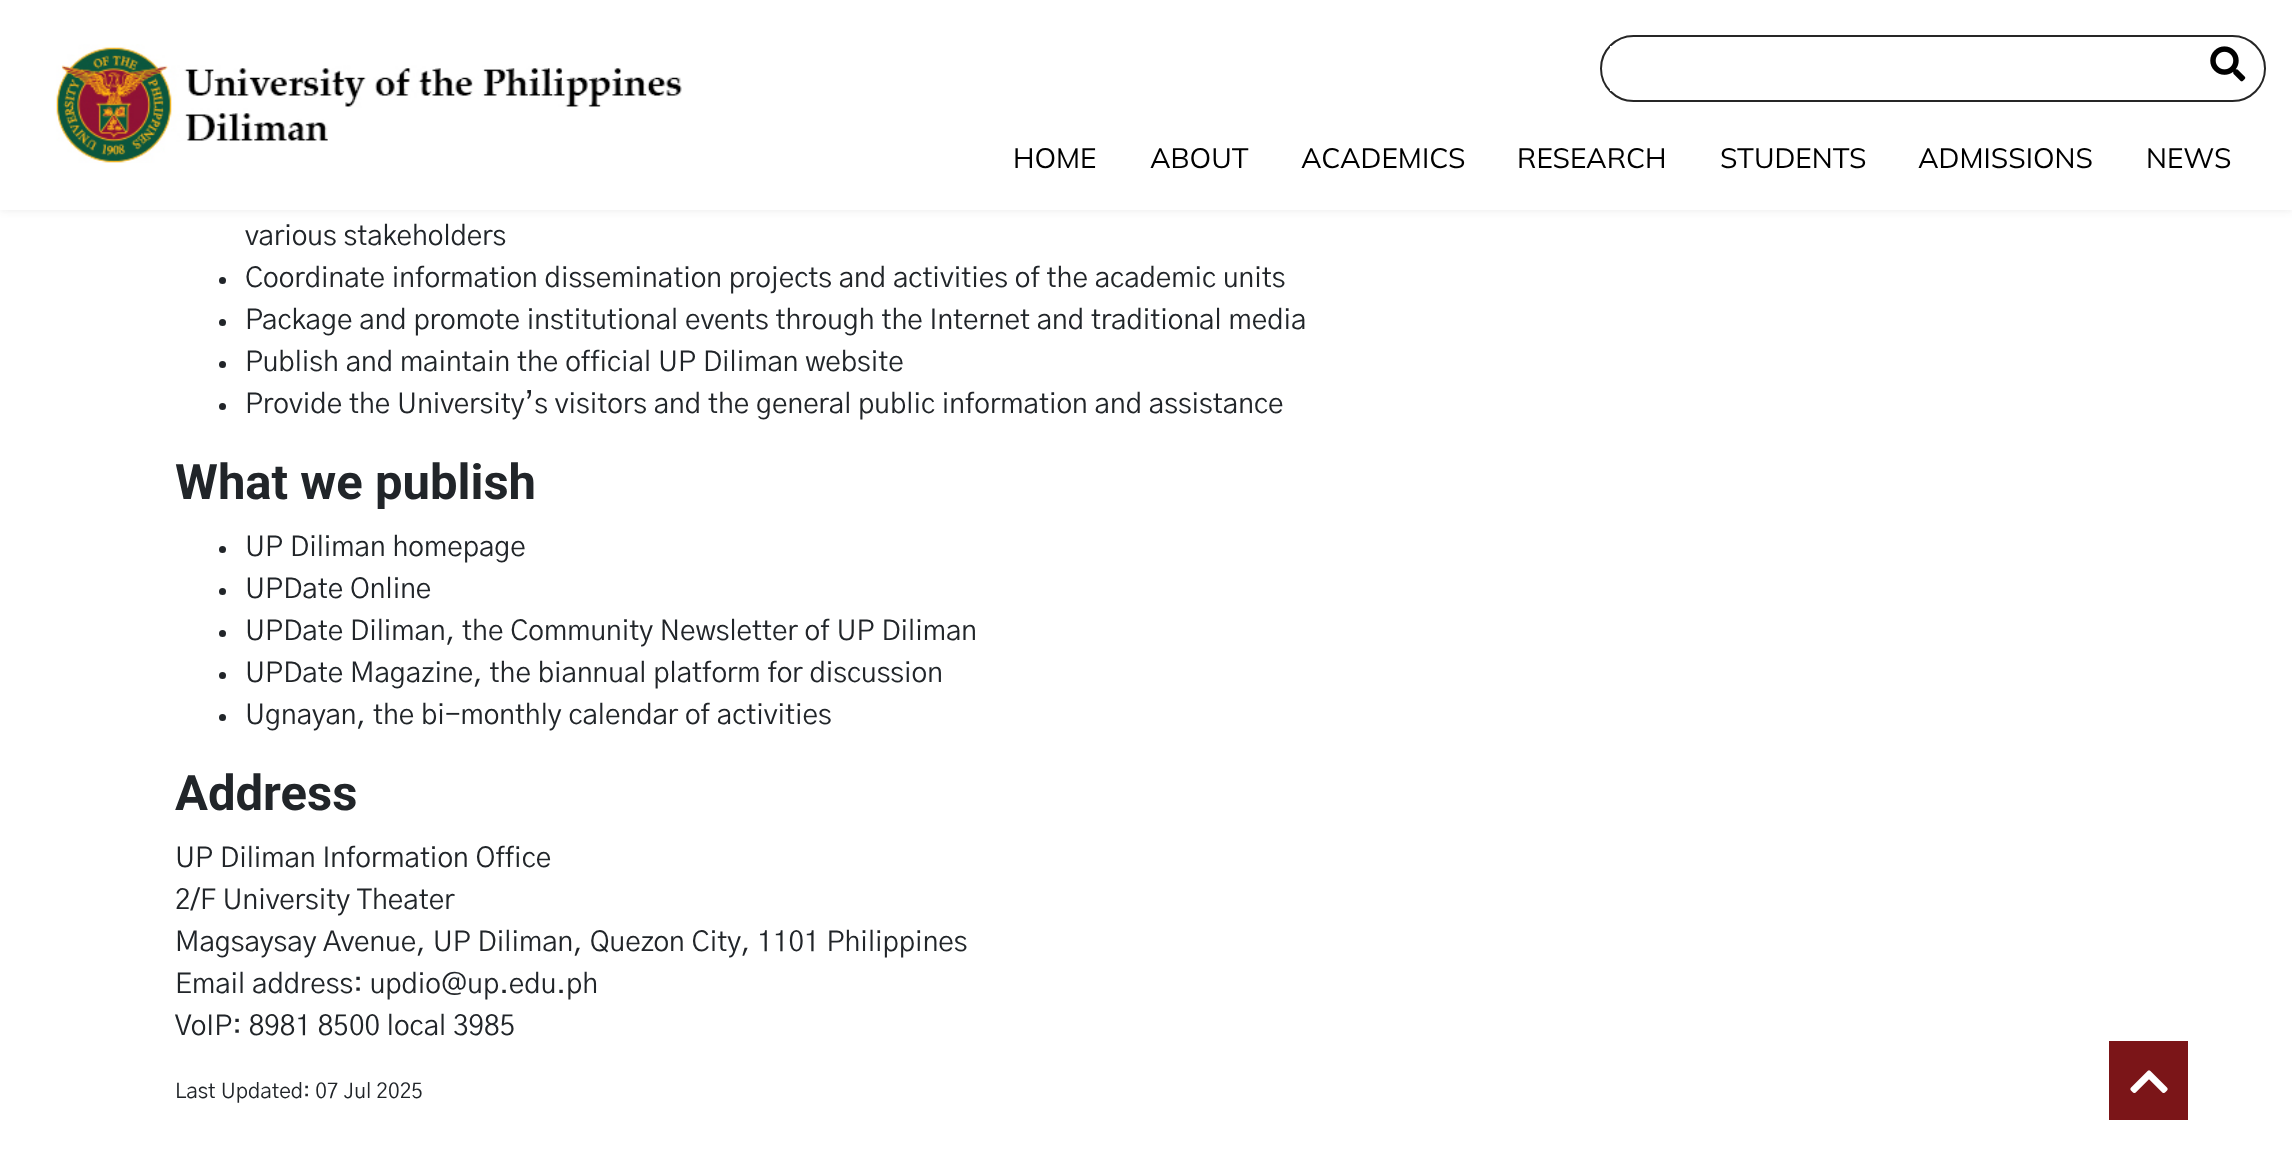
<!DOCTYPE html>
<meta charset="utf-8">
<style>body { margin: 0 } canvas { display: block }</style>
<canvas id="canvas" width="2292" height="1171"></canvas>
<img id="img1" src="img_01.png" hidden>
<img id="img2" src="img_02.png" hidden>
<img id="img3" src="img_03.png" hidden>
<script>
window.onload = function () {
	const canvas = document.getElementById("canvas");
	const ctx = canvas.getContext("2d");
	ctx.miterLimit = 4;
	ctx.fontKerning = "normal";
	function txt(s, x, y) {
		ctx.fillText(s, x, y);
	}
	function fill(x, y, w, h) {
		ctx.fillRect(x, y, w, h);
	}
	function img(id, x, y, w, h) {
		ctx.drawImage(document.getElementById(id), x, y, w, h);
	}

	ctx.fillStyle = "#FFFFFF";
	fill(0, 0, 2292, 1171);
	ctx.fillStyle = "rgba(52, 52, 52, 0.1)";
	ctx.filter = "blur(4.5px)";
	ctx.beginPath();
	ctx.rect(0, 0, 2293, 210);
	ctx.fill();
	ctx.filter = "none";
	ctx.fillStyle = "#FFFFFF";
	fill(0, 0, 2292, 210);
	img("img1", 56, 44, 626, 119);
	ctx.beginPath();
	ctx.roundRect(1601, 36, 664, 65, 32.5);
	ctx.strokeStyle = "#262626";
	ctx.lineWidth = 2;
	ctx.stroke();
	fill(1610, 46, 2, 45);
	img("img2", 2210, 46, 36, 36);
	ctx.fillStyle = "#212529";
	ctx.beginPath();
	ctx.arc(222.5, 280.5, 3.5, 0, Math.PI * 2);
	ctx.fill();
	ctx.beginPath();
	ctx.arc(222.5, 322.5, 3.5, 0, Math.PI * 2);
	ctx.fill();
	ctx.beginPath();
	ctx.arc(222.5, 364.5, 3.5, 0, Math.PI * 2);
	ctx.fill();
	ctx.beginPath();
	ctx.arc(222.5, 406.5, 3.5, 0, Math.PI * 2);
	ctx.fill();
	ctx.beginPath();
	ctx.arc(222.5, 549.5, 3.5, 0, Math.PI * 2);
	ctx.fill();
	ctx.beginPath();
	ctx.arc(222.5, 591.5, 3.5, 0, Math.PI * 2);
	ctx.fill();
	ctx.beginPath();
	ctx.arc(222.5, 633.5, 3.5, 0, Math.PI * 2);
	ctx.fill();
	ctx.beginPath();
	ctx.arc(222.5, 675.5, 3.5, 0, Math.PI * 2);
	ctx.fill();
	ctx.beginPath();
	ctx.arc(222.5, 717.5, 3.5, 0, Math.PI * 2);
	ctx.fill();
	ctx.fillStyle = "#7B1518";
	fill(2109, 1041, 79, 79);
	img("img3", 2130, 1070, 38, 23);
	ctx.font = "28px Mulish";
	ctx.fillStyle = "#000000";
	txt("HOME", 1013, 168);
	txt("ABOUT", 1150, 168);
	txt("ACADEMICS", 1301, 168);
	txt("RESEARCH", 1517, 168);
	txt("STUDENTS", 1720, 168);
	txt("ADMISSIONS", 1918, 168);
	txt("NEWS", 2146, 168);
	ctx.font = "28px 'Gothic A1'";
	ctx.fillStyle = "#212529";
	txt("various stakeholders", 245, 245);
	txt("Coordinate information dissemination projects and activities of the academic units", 245, 287);
	txt("Package and promote institutional events through the Internet and traditional media", 245, 329);
	txt("Publish and maintain the official UP Diliman website", 245, 371);
	txt("Provide the University’s visitors and the general public information and assistance", 245, 413);
	ctx.font = "bold 49px Roboto";
	txt("What we publish", 175, 499);
	ctx.font = "28px 'Gothic A1'";
	txt("UP Diliman homepage", 245, 556);
	txt("UPDate Online", 245, 598);
	txt("UPDate Diliman, the Community Newsletter of UP Diliman", 245, 640);
	txt("UPDate Magazine, the biannual platform for discussion", 245, 682);
	txt("Ugnayan, the bi-monthly calendar of activities", 245, 724);
	ctx.font = "bold 49px Roboto";
	txt("Address", 175, 810);
	ctx.font = "28px 'Gothic A1'";
	txt("UP Diliman Information Office", 175, 867);
	txt("2/F University Theater", 175, 909);
	txt("Magsaysay Avenue, UP Diliman, Quezon City, 1101 Philippines", 175, 951);
	txt("Email address: updio@up.edu.ph", 175, 993);
	txt("VoIP: 8981 8500 local 3985", 175, 1035);
	ctx.font = "21px 'Gothic A1'";
	txt("Last Updated: 07 Jul 2025", 175, 1098);
};
</script>
